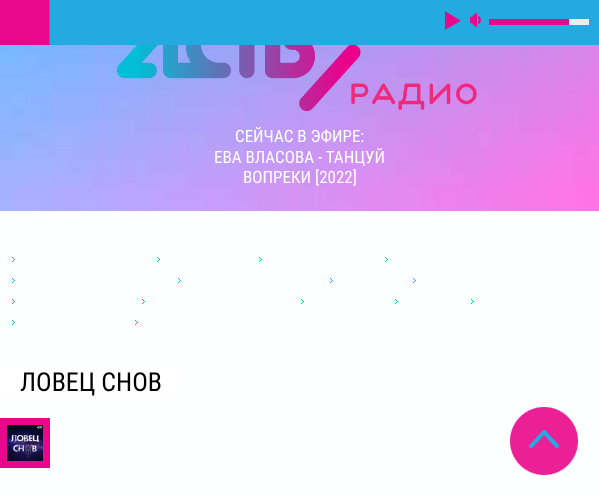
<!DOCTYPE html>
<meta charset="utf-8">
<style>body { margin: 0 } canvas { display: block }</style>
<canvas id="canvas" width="599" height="496"></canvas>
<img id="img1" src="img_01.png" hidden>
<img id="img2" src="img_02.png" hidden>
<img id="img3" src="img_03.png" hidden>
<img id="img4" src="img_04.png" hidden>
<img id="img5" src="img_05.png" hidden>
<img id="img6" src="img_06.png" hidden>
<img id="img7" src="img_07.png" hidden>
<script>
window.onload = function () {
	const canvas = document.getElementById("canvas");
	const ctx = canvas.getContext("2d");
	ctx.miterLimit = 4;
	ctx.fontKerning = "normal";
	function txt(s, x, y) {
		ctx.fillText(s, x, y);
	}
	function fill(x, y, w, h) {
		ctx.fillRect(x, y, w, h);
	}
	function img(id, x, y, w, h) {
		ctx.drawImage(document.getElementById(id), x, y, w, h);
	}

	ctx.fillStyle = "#FCFEFF";
	fill(0, 0, 599, 496);
	ctx.fillStyle = "#23AAE1";
	fill(50, 0, 549, 45);
	ctx.fillStyle = "#E9088C";
	fill(0, 0, 49, 44);
	ctx.fillStyle = "#009BD3";
	fill(49, 0, 1, 45);
	ctx.fillStyle = "#E9088C";
	fill(0, 44, 50, 1);
	img("img1", 444, 11, 17, 19);
	img("img2", 470, 13, 11, 14);
	ctx.fillStyle = "#ECECEC";
	fill(569, 19, 20, 6);
	ctx.fillStyle = "#E9088C";
	fill(489, 19, 80, 6);
	img("img3", 0, 45, 599, 166);
	img("img4", 117, 45, 360, 66);
	img("img5", 12, 257, 3, 5);
	img("img5", 157, 257, 3, 5);
	img("img5", 259, 257, 3, 5);
	img("img5", 385, 257, 3, 5);
	img("img5", 12, 278, 3, 5);
	img("img5", 178, 278, 3, 5);
	img("img5", 330, 278, 3, 5);
	img("img5", 413, 278, 3, 5);
	img("img5", 12, 299, 3, 5);
	img("img5", 142, 299, 3, 5);
	img("img5", 301, 299, 3, 5);
	img("img5", 395, 299, 3, 5);
	img("img5", 471, 299, 3, 5);
	img("img5", 12, 320, 3, 5);
	img("img5", 135, 320, 3, 5);
	ctx.fillStyle = "#FFFFFF";
	fill(0, 367, 182, 30);
	ctx.strokeStyle = "#E9088C";
	ctx.lineWidth = 7;
	ctx.strokeRect(3.5, 421.5, 43, 43);
	img("img6", 7, 425, 36, 36);
	img("img7", 510, 407, 68, 68);
	ctx.font = "17px Roboto Condensed";
	txt("СЕЙЧАС В ЭФИРЕ:", 235, 142);
	txt("ЕВА ВЛАСОВА - ТАНЦУЙ", 214, 163);
	txt("ВОПРЕКИ [2022]", 243, 183);
	ctx.font = "26px Roboto Condensed";
	ctx.fillStyle = "#000000";
	txt("ЛОВЕЦ СНОВ", 20, 391);
};
</script>
